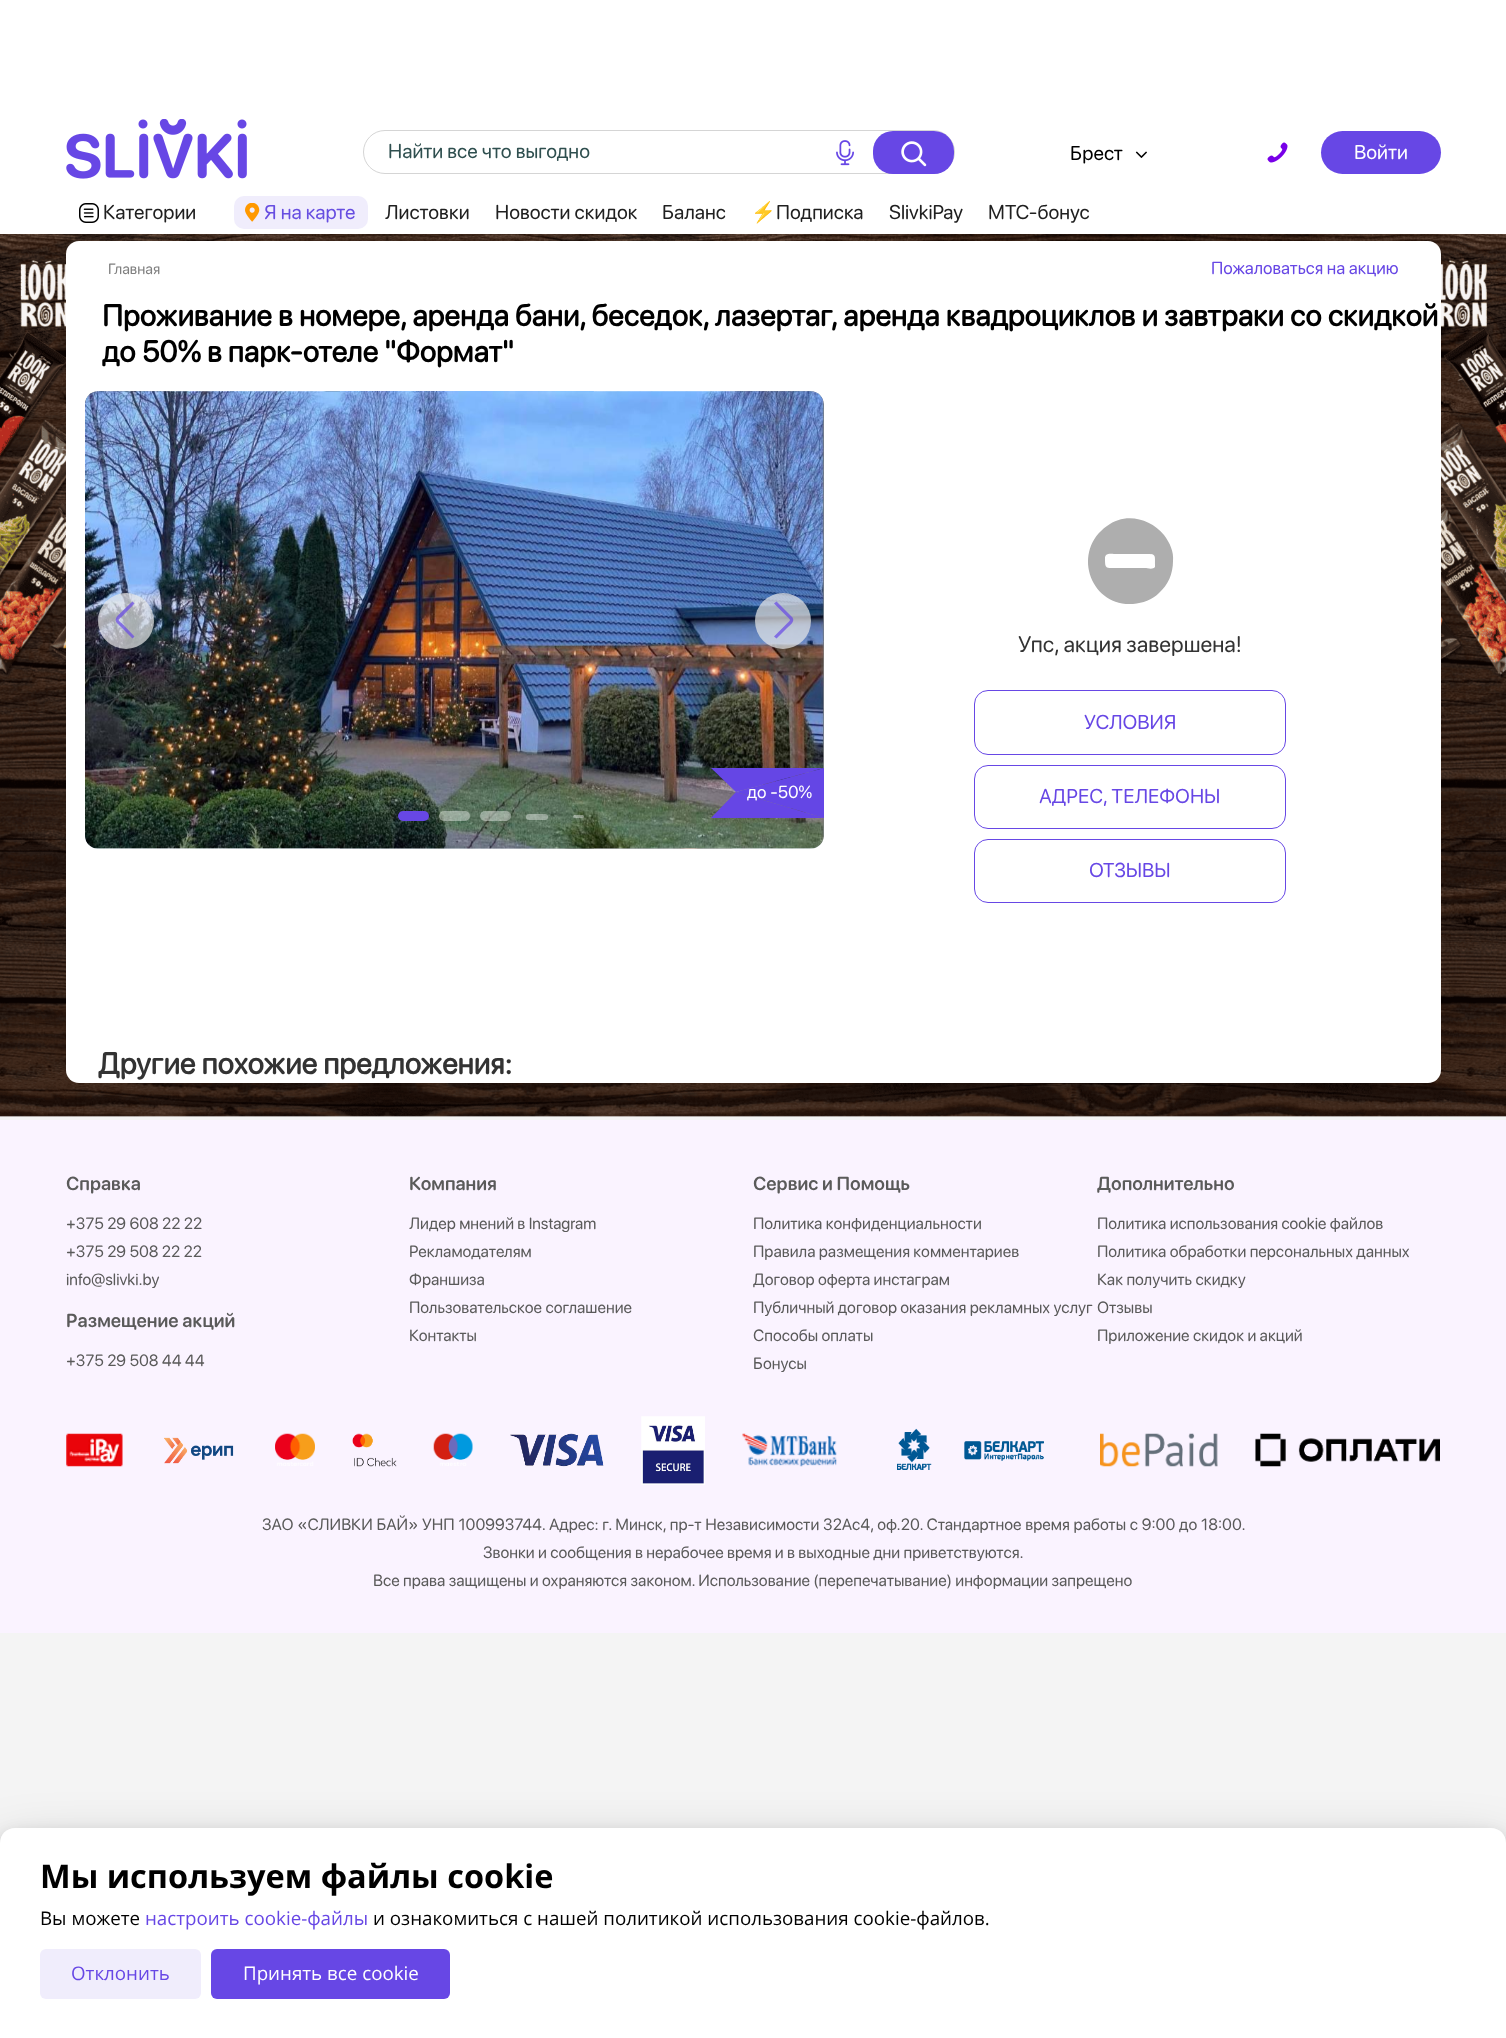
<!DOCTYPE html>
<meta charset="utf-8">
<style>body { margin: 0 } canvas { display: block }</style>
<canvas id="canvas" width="1506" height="2038"></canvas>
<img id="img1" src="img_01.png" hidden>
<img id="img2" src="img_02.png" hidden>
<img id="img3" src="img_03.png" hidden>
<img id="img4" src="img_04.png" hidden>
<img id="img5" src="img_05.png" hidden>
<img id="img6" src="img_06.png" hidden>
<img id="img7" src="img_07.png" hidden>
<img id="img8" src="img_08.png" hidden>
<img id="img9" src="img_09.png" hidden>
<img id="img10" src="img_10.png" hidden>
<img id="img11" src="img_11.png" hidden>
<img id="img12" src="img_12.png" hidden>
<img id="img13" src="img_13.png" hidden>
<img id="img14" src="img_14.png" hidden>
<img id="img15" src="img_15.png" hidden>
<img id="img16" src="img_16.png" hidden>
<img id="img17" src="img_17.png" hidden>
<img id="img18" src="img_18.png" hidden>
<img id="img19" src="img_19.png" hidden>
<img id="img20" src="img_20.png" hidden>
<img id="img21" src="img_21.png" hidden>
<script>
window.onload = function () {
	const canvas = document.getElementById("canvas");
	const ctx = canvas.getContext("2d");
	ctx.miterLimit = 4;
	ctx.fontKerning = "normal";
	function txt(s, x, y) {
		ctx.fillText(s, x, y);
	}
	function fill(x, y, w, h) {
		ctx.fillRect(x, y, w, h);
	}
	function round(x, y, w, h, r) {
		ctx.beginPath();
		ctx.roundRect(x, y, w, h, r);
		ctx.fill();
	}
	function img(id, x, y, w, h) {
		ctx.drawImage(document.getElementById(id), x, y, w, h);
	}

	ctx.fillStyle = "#F4F4F4";
	fill(0, 0, 1506, 2038);
	ctx.fillStyle = "#FFFFFF";
	fill(0, 0, 1506, 234);
	img("img1", 66, 119, 181, 60);
	ctx.beginPath();
	ctx.roundRect(363.5, 130.5, 591, 43, 21.5);
	ctx.strokeStyle = "#D5D5D5";
	ctx.stroke();
	img("img2", 836, 140, 18, 26);
	ctx.fillStyle = "#6747E5";
	round(873, 131, 81, 43, 20);
	img("img3", 901, 141, 26, 26);
	img("img4", 1135, 151, 12, 7);
	img("img5", 1267, 142, 21, 21);
	round(1321, 131, 120, 43, 21.5);
	img("img6", 79, 203, 20, 20);
	ctx.fillStyle = "#F0EDFC";
	round(234, 196, 134, 33, 10);
	img("img7", 245, 203, 15, 19);
	img("img8", 0, 234, 1506, 883);
	ctx.fillStyle = "#FFFFFF";
	round(66, 241, 1375, 842, 13);
	img("img9", 85, 391, 739, 458);
	img("img10", 85, 391, 739, 458);
	ctx.fillStyle = "rgba(232, 232, 232, 0.7)";
	ctx.beginPath();
	ctx.arc(126, 621, 28, 0, Math.PI * 2);
	ctx.fill();
	ctx.fillStyle = "rgba(103, 71, 229, 0.7)";
	ctx.beginPath();
	ctx.moveTo(132.5, 638.5);
	ctx.lineTo(116.5, 622.5);
	ctx.bezierCurveTo(113.5, 618, 119.5, 614, 122, 611.5);
	ctx.lineTo(132.5, 601.5);
	ctx.lineTo(134.5, 603.5);
	ctx.lineTo(122, 616.5);
	ctx.bezierCurveTo(117.5, 620.5, 117.5, 619.5, 122, 623.5);
	ctx.lineTo(134.5, 636.5);
	ctx.closePath();
	ctx.fill();
	ctx.fillStyle = "rgba(232, 232, 232, 0.7)";
	ctx.beginPath();
	ctx.arc(783, 621, 28, 0, Math.PI * 2);
	ctx.fill();
	ctx.fillStyle = "rgba(103, 71, 229, 0.7)";
	ctx.beginPath();
	ctx.moveTo(776.5, 601.5);
	ctx.lineTo(792.5, 617.5);
	ctx.bezierCurveTo(795.5, 622, 789, 626, 786.5, 628.5);
	ctx.lineTo(776.5, 638.5);
	ctx.lineTo(774, 636.5);
	ctx.lineTo(787, 623.5);
	ctx.bezierCurveTo(791, 619.5, 791, 620.5, 787, 616.5);
	ctx.lineTo(774, 603.5);
	ctx.closePath();
	ctx.fill();
	ctx.fillStyle = "#6747E5";
	round(398, 811, 31, 10, 5);
	ctx.fillStyle = "rgba(255, 255, 255, 0.4)";
	round(439, 811, 31, 10, 5);
	round(480, 811, 31, 10, 5);
	round(526, 814, 22, 6, 3);
	round(573, 815, 11, 3, 1.5);
	ctx.fillStyle = "#6546E5";
	ctx.beginPath();
	ctx.moveTo(711, 768);
	ctx.lineTo(824, 768);
	ctx.lineTo(736, 792);
	ctx.closePath();
	ctx.fill();
	ctx.fillStyle = "#6446E5";
	ctx.beginPath();
	ctx.moveTo(824, 768);
	ctx.lineTo(824, 818);
	ctx.lineTo(736, 792);
	ctx.closePath();
	ctx.fill();
	ctx.fillStyle = "#6646E5";
	ctx.beginPath();
	ctx.moveTo(824, 818);
	ctx.lineTo(711, 818);
	ctx.lineTo(736, 792);
	ctx.closePath();
	ctx.fill();
	ctx.fillStyle = "#AEAEAE";
	ctx.beginPath();
	ctx.moveTo(1155, 565);
	ctx.bezierCurveTo(1155, 554, 1156, 554, 1145, 554);
	ctx.lineTo(1116, 554);
	ctx.bezierCurveTo(1114, 554, 1108, 553, 1106, 555);
	ctx.lineTo(1105, 557);
	ctx.bezierCurveTo(1105, 569, 1105, 568, 1116, 568);
	ctx.lineTo(1145, 568);
	ctx.bezierCurveTo(1147, 568, 1153, 570, 1155, 567);
	ctx.closePath();
	ctx.moveTo(1173, 561);
	ctx.bezierCurveTo(1173, 574, 1168, 585, 1159, 593);
	ctx.bezierCurveTo(1152, 600, 1143, 603, 1133, 604);
	ctx.bezierCurveTo(1090, 607, 1071, 551, 1107, 526);
	ctx.bezierCurveTo(1125, 512, 1150, 518, 1164, 535);
	ctx.bezierCurveTo(1170, 543, 1174, 552, 1173, 561);
	ctx.closePath();
	ctx.fill();
	ctx.beginPath();
	ctx.roundRect(974.5, 690.5, 311, 64, 13.5);
	ctx.strokeStyle = "#6747E5";
	ctx.stroke();
	ctx.beginPath();
	ctx.roundRect(974.5, 765.5, 311, 63, 13.5);
	ctx.stroke();
	ctx.beginPath();
	ctx.roundRect(974.5, 839.5, 311, 63, 13.5);
	ctx.stroke();
	ctx.fillStyle = "#FAF3FF";
	fill(0, 1120, 1506, 513);
	img("img11", 66, 1433, 57, 34);
	img("img12", 164, 1437, 70, 27);
	img("img13", 275, 1433, 40, 33);
	img("img14", 352, 1433, 45, 34);
	img("img15", 433, 1433, 40, 33);
	img("img16", 510, 1433, 94, 34);
	img("img17", 641, 1416, 64, 69);
	img("img18", 742, 1433, 95, 34);
	img("img19", 897, 1428, 147, 42);
	img("img20", 1100, 1433, 118, 34);
	img("img21", 1255, 1433, 185, 34);
	ctx.fillStyle = "rgba(0, 0, 0, 0.12)";
	ctx.filter = "blur(7.5px)";
	ctx.beginPath();
	ctx.roundRect(0, 1833, 1506, 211, 15);
	ctx.fill();
	ctx.filter = "none";
	ctx.fillStyle = "rgba(0, 0, 0, 0.32)";
	ctx.filter = "blur(30px)";
	ctx.beginPath();
	ctx.roundRect(0, 1858, 1506, 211, 15);
	ctx.fill();
	ctx.filter = "none";
	ctx.fillStyle = "#FFFFFF";
	ctx.beginPath();
	ctx.moveTo(15, 1828);
	ctx.lineTo(1491, 1828);
	ctx.bezierCurveTo(1499.5, 1828, 1506, 1834.5, 1506, 1843);
	ctx.lineTo(1506, 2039);
	ctx.lineTo(0, 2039);
	ctx.lineTo(0, 1843);
	ctx.bezierCurveTo(0, 1834.5, 6.5, 1828, 15, 1828);
	ctx.closePath();
	ctx.fill();
	ctx.fillStyle = "#F0EDFC";
	round(40, 1949, 161, 50, 6);
	ctx.fillStyle = "#6747E5";
	round(211, 1949, 239, 50, 6);
	ctx.font = "200 20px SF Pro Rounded";
	ctx.fillStyle = "#2F4F4F";
	txt("Найти все что выгодно", 388, 158);
	ctx.fillStyle = "#000000";
	txt("Брест", 1070, 160);
	ctx.fillStyle = "#FFFFFF";
	txt("Войти", 1354, 159);
	ctx.fillStyle = "#202020";
	txt("Категории", 103, 219);
	ctx.fillStyle = "#674EE1";
	txt("Я на карте", 264, 219);
	ctx.fillStyle = "#202020";
	txt("Листовки", 385, 219);
	txt("Новости скидок", 495, 219);
	txt("Баланс", 662, 219);
	ctx.font = "20px Noto Color Emoji";
	txt("⚡️", 751, 219);
	ctx.font = "200 20px SF Pro Rounded";
	txt("Подписка", 776, 219);
	txt("SlivkiPay", 889, 219);
	txt("МТС-бонус", 988, 219);
	ctx.font = "200 15px SF Pro Rounded";
	ctx.fillStyle = "#808080";
	txt("Главная", 108, 274);
	ctx.font = "200 17.5px SF Pro Rounded";
	ctx.fillStyle = "#6747E5";
	txt("Пожаловаться на акцию", 1211, 274);
	ctx.font = "bold 30px SF Pro Rounded";
	ctx.fillStyle = "#000000";
	txt("Проживание в номере, аренда бани, беседок, лазертаг, аренда квадроциклов и завтраки со скидкой", 102, 326);
	txt("до 50% в парк-отеле \"Формат\"", 102, 362);
	ctx.font = "200 17.5px SF Pro Rounded";
	ctx.fillStyle = "#FFFFFF";
	txt("до -50%", 747, 798);
	ctx.font = "200 22.5px 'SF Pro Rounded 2'";
	ctx.fillStyle = "#333333";
	txt("Упс, акция завершена!", 1018, 652);
	ctx.font = "200 20px 'SF Pro Rounded 2'";
	ctx.fillStyle = "#6747E5";
	txt("УСЛОВИЯ", 1084, 729);
	txt("АДРЕС, ТЕЛЕФОНЫ", 1039, 803);
	txt("ОТЗЫВЫ", 1089, 877);
	ctx.font = "bold 30px SF Pro Rounded";
	ctx.fillStyle = "#333333";
	txt("Другие похожие предложения:", 98, 1074);
	ctx.font = "200 18.75px 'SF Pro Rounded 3'";
	ctx.fillStyle = "#5A5A5A";
	txt("Справка", 66, 1190);
	ctx.font = "200 16.25px SF Pro Rounded";
	txt("+375 29 608 22 22", 66, 1229);
	txt("+375 29 508 22 22", 66, 1257);
	txt("info@slivki.by", 66, 1285);
	ctx.font = "200 18.75px 'SF Pro Rounded 3'";
	txt("Размещение акций", 66, 1327);
	ctx.font = "200 16.25px SF Pro Rounded";
	txt("+375 29 508 44 44", 66, 1366);
	ctx.font = "200 18.75px 'SF Pro Rounded 3'";
	txt("Компания", 409, 1190);
	ctx.font = "200 16.25px SF Pro Rounded";
	txt("Лидер мнений в Instagram", 409, 1229);
	txt("Рекламодателям", 409, 1257);
	txt("Франшиза", 409, 1285);
	txt("Пользовательское соглашение", 409, 1313);
	txt("Контакты", 409, 1341);
	ctx.font = "200 18.75px 'SF Pro Rounded 3'";
	txt("Сервис и Помощь", 753, 1190);
	ctx.font = "200 16.25px SF Pro Rounded";
	txt("Политика конфиденциальности", 753, 1229);
	txt("Правила размещения комментариев", 753, 1257);
	txt("Договор оферта инстаграм", 753, 1285);
	txt("Публичный договор оказания рекламных услуг", 753, 1313);
	txt("Способы оплаты", 753, 1341);
	txt("Бонусы", 753, 1369);
	ctx.font = "200 18.75px 'SF Pro Rounded 3'";
	txt("Дополнительно", 1097, 1190);
	ctx.font = "200 16.25px SF Pro Rounded";
	txt("Политика использования cookie файлов", 1097, 1229);
	txt("Политика обработки персональных данных", 1097, 1257);
	txt("Как получить скидку", 1097, 1285);
	txt("Отзывы", 1097, 1313);
	txt("Приложение скидок и акций", 1097, 1341);
	ctx.wordSpacing = "0.4px";
	txt("ЗАО «СЛИВКИ БАЙ» УНП 100993744. Адрес: г. Минск, пр-т Независимости 32Ас4, оф.20. Стандартное время работы с 9:00 до 18:00.", 262, 1530);
	ctx.wordSpacing = "0px";
	txt("Звонки и сообщения в нерабочее время и в выходные дни приветствуются.", 483, 1558);
	txt("Все права защищены и охраняются законом. Использование (перепечатывание) информации запрещено", 373, 1586);
	ctx.font = "bold 32.5px Open Sans";
	ctx.fillStyle = "#000000";
	txt("Мы используем файлы cookie", 40, 1888);
	ctx.font = "18.75px Open Sans";
	txt("Вы можете", 40, 1925);
	ctx.fillStyle = "#6747E5";
	txt("настроить cookie-файлы", 145, 1925);
	ctx.fillStyle = "#000000";
	txt("и ознакомиться с нашей политикой использования cookie-файлов.", 373, 1925);
	ctx.fillStyle = "#6747E5";
	txt("Отклонить", 71, 1980);
	ctx.fillStyle = "#FFFFFF";
	txt("Принять все cookie", 243, 1980);
};
</script>
